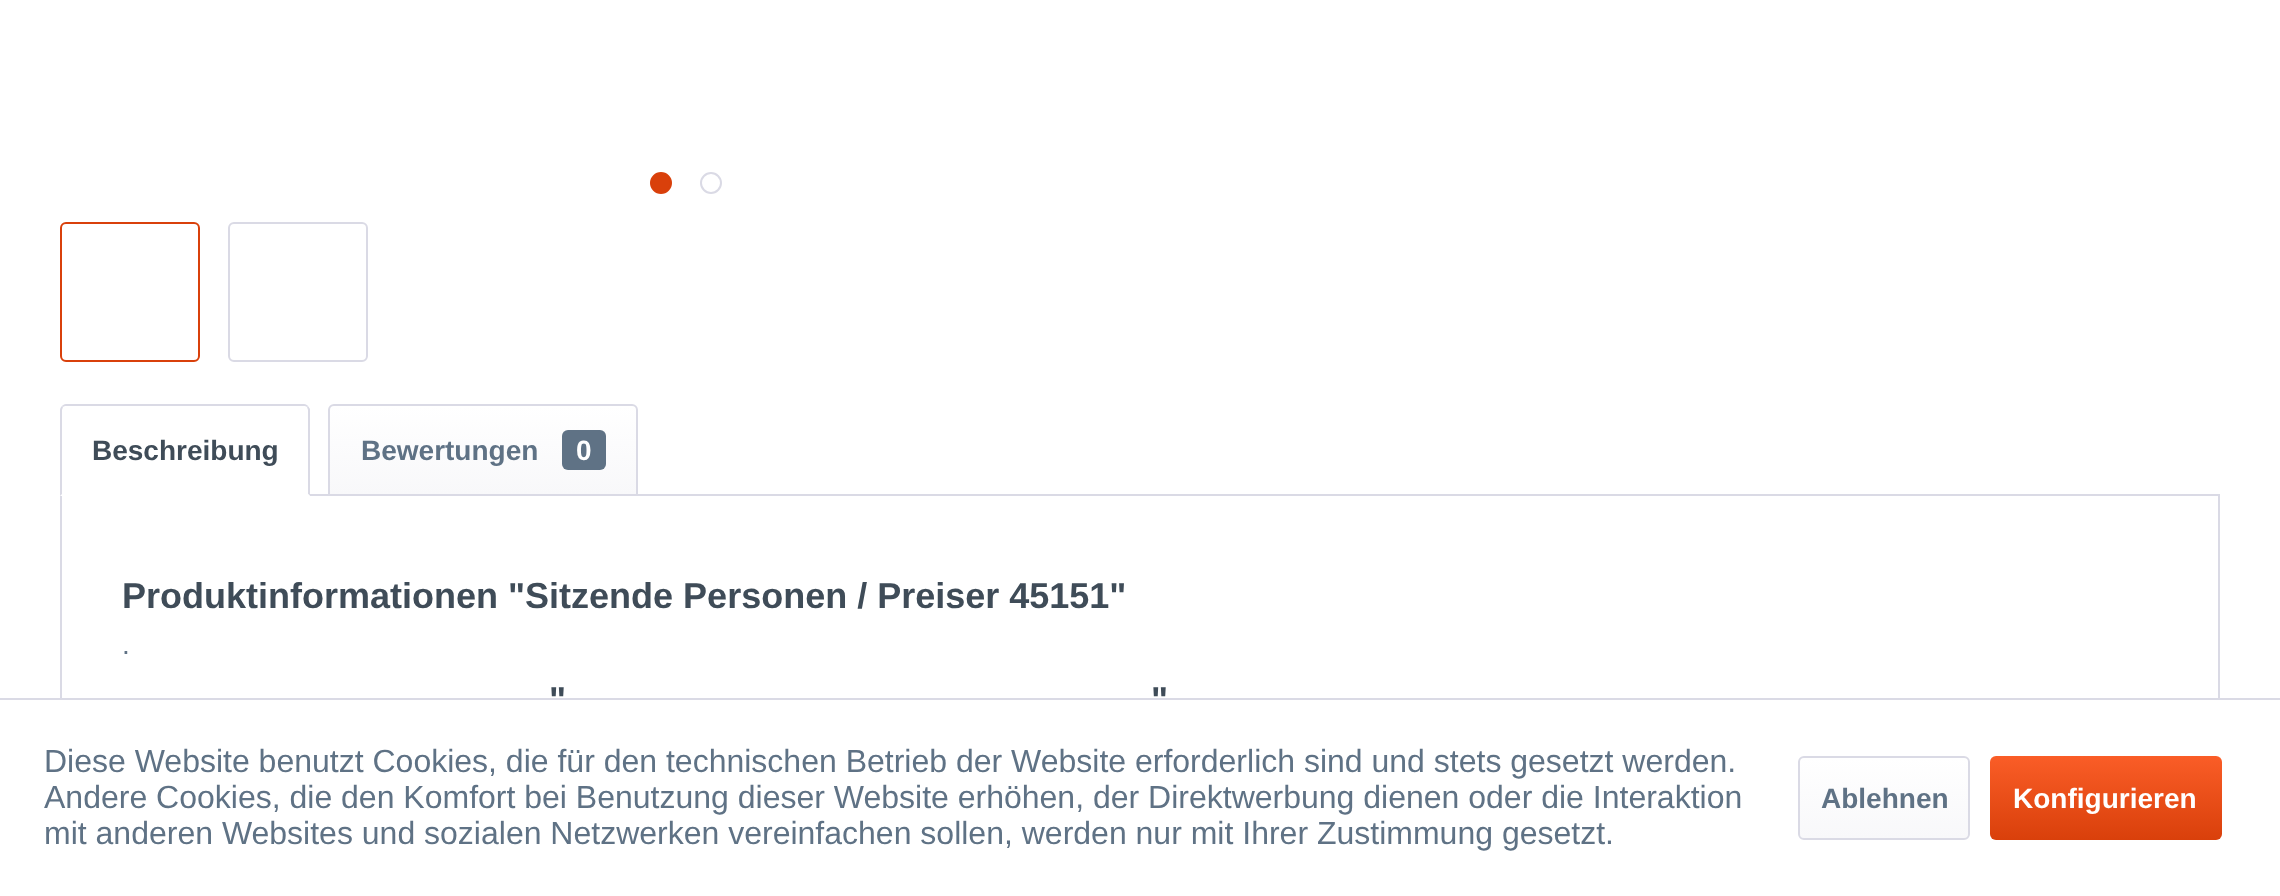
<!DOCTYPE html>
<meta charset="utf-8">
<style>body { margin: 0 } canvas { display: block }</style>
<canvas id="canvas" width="2280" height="896"></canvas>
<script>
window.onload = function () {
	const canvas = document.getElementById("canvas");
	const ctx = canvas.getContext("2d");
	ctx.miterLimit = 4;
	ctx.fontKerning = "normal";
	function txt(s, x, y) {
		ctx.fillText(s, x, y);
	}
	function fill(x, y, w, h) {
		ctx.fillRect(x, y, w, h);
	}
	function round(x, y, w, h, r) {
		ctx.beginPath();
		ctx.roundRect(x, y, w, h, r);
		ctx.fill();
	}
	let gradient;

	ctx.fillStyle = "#FFFFFF";
	fill(0, 0, 2280, 896);
	ctx.fillStyle = "#D9400B";
	ctx.beginPath();
	ctx.arc(661, 183, 10, 0, Math.PI * 2);
	ctx.fill();
	ctx.strokeStyle = "#D9400B";
	ctx.lineWidth = 2;
	ctx.stroke();
	ctx.beginPath();
	ctx.arc(711, 183, 10, 0, Math.PI * 2);
	ctx.strokeStyle = "#DADAE5";
	ctx.stroke();
	ctx.beginPath();
	ctx.roundRect(61, 223, 138, 138, 5);
	ctx.strokeStyle = "#D9400B";
	ctx.stroke();
	ctx.beginPath();
	ctx.roundRect(229, 223, 138, 138, 5);
	ctx.strokeStyle = "#DADAE5";
	ctx.stroke();
	ctx.strokeRect(61, 495, 2158, 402);
	ctx.fillStyle = "#FFFFFF";
	ctx.beginPath();
	ctx.roundRect(60, 404, 250, 92, [6, 6, 0, 0]);
	ctx.fill();
	ctx.fillStyle = "#DADAE5";
	ctx.beginPath();
	ctx.moveTo(66, 404);
	ctx.bezierCurveTo(64, 404, 63, 405, 62, 406);
	ctx.lineTo(63, 407);
	ctx.bezierCurveTo(64, 406, 65, 406, 66, 406);
	ctx.lineTo(304, 406);
	ctx.bezierCurveTo(305, 406, 306, 406, 307, 407);
	ctx.lineTo(308, 406);
	ctx.bezierCurveTo(307, 405, 306, 404, 304, 404);
	ctx.closePath();
	ctx.fill();
	ctx.beginPath();
	ctx.moveTo(310, 496);
	ctx.lineTo(310, 409);
	ctx.lineTo(308, 406);
	ctx.lineTo(307, 407);
	ctx.lineTo(308, 410);
	ctx.lineTo(308, 494);
	ctx.closePath();
	ctx.fill();
	ctx.fillStyle = "#FFFFFF";
	ctx.beginPath();
	ctx.moveTo(310, 496);
	ctx.lineTo(308, 494);
	ctx.lineTo(62, 494);
	ctx.lineTo(60, 496);
	ctx.closePath();
	ctx.fill();
	ctx.fillStyle = "#DADAE5";
	ctx.beginPath();
	ctx.moveTo(60, 496);
	ctx.lineTo(62, 494);
	ctx.lineTo(62, 410);
	ctx.lineTo(63, 407);
	ctx.lineTo(62, 406);
	ctx.bezierCurveTo(61, 407, 60, 408, 60, 410);
	ctx.closePath();
	ctx.fill();
	gradient = ctx.createLinearGradient(483, 406, 483, 494);
	gradient.addColorStop(0, "#FFFFFF");
	gradient.addColorStop(1, "#F8F8FA");
	ctx.fillStyle = gradient;
	ctx.beginPath();
	ctx.roundRect(330, 406, 306, 88, [4, 4, 0, 0]);
	ctx.fill();
	ctx.beginPath();
	ctx.roundRect(329, 405, 308, 90, [5, 5, 0, 0]);
	ctx.stroke();
	ctx.fillStyle = "#5F7285";
	round(562, 430, 44, 40, 6);
	ctx.fillStyle = "#FFFFFF";
	fill(60, 700, 2160, 196);
	ctx.fillStyle = "#DADAE5";
	fill(0, 698, 2280, 2);
	gradient = ctx.createLinearGradient(1884, 758, 1884, 838);
	gradient.addColorStop(0, "#FFFFFF");
	gradient.addColorStop(1, "#F8F8FA");
	ctx.fillStyle = gradient;
	round(1800, 758, 168, 80, 4);
	ctx.beginPath();
	ctx.roundRect(1799, 757, 170, 82, 5);
	ctx.stroke();
	gradient = ctx.createLinearGradient(2106, 756, 2106, 840);
	gradient.addColorStop(0, "#FA5D27");
	gradient.addColorStop(1, "#D9400B");
	ctx.fillStyle = gradient;
	round(1990, 756, 232, 84, 6);
	ctx.font = "bold 28px Liberation Sans";
	ctx.fillStyle = "#3F4C58";
	txt("Beschreibung", 92, 460);
	ctx.fillStyle = "#5F7285";
	txt("Bewertungen", 361, 460);
	ctx.fillStyle = "#FFFFFF";
	txt("0", 576, 460);
	ctx.font = "bold 36px Liberation Sans";
	ctx.fillStyle = "#3F4C58";
	txt("Produktinformationen \"Sitzende Personen / Preiser 45151\"", 122, 608);
	ctx.font = "28px Liberation Sans";
	ctx.fillStyle = "#5F7285";
	txt(".", 122, 654);
	ctx.font = "bold 36px Liberation Sans";
	ctx.fillStyle = "#3F4C58";
	txt("\"", 549, 712);
	txt("\"", 1151, 712);
	ctx.font = "32px Liberation Sans";
	ctx.fillStyle = "#5F7285";
	txt("Diese Website benutzt Cookies, die für den technischen Betrieb der Website erforderlich sind und stets gesetzt werden.", 44, 772);
	txt("Andere Cookies, die den Komfort bei Benutzung dieser Website erhöhen, der Direktwerbung dienen oder die Interaktion", 44, 808);
	txt("mit anderen Websites und sozialen Netzwerken vereinfachen sollen, werden nur mit Ihrer Zustimmung gesetzt.", 44, 844);
	ctx.font = "bold 28px Liberation Sans";
	txt("Ablehnen", 1821, 808);
	ctx.fillStyle = "#FFFFFF";
	txt("Konfigurieren", 2013, 808);
};
</script>
